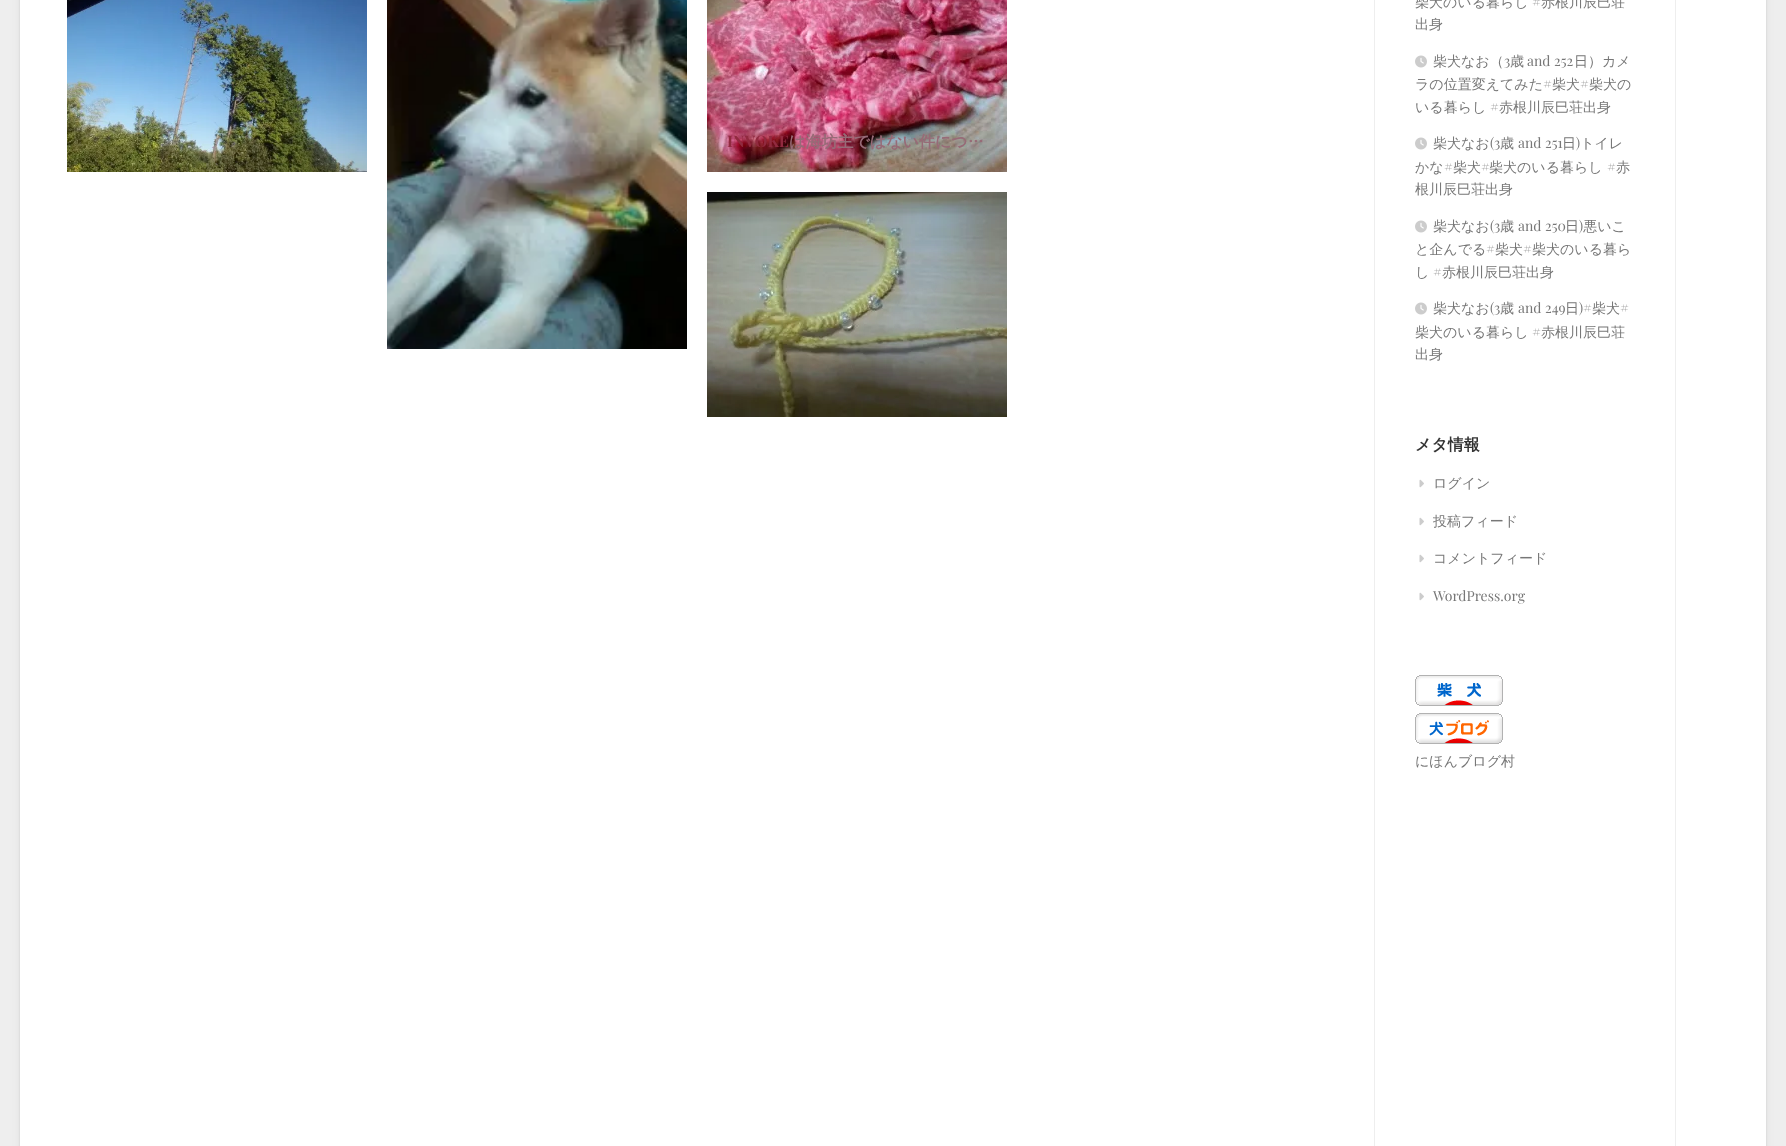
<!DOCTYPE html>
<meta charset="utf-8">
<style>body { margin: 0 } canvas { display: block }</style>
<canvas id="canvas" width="1786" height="1146"></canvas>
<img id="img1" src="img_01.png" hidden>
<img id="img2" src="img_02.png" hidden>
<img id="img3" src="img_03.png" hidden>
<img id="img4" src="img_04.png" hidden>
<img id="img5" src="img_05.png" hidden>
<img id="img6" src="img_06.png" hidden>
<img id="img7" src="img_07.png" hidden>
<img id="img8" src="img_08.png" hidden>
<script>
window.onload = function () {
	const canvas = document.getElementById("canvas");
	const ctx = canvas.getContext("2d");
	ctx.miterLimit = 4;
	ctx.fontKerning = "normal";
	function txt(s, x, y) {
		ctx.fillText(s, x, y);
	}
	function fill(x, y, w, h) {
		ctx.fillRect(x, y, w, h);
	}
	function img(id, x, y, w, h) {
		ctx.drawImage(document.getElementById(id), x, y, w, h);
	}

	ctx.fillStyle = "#EEEEEE";
	fill(0, 0, 1786, 1146);
	ctx.fillStyle = "rgba(0, 0, 0, 0.1)";
	ctx.filter = "blur(1px)";
	ctx.beginPath();
	ctx.rect(20, -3, 1746, 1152);
	ctx.fill();
	ctx.filter = "none";
	ctx.fillStyle = "rgba(0, 0, 0, 0.05)";
	ctx.filter = "blur(5px)";
	ctx.beginPath();
	ctx.rect(20, -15, 1746, 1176);
	ctx.fill();
	ctx.filter = "none";
	ctx.fillStyle = "#FFFFFF";
	fill(20, 0, 1746, 1146);
	img("img1", 67, 0, 300, 172);
	img("img2", 387, 0, 300, 349);
	img("img3", 707, 0, 300, 172);
	img("img4", 707, 192, 300, 225);
	ctx.fillStyle = "#EEEEEE";
	fill(1374, 0, 1, 1146);
	img("img5", 1415, 55, 12, 13);
	img("img5", 1415, 137, 12, 13);
	img("img5", 1415, 220, 12, 13);
	img("img5", 1415, 302, 12, 13);
	img("img6", 1419, 479, 5, 9);
	img("img6", 1419, 517, 5, 9);
	img("img6", 1419, 554, 5, 9);
	img("img6", 1419, 592, 5, 9);
	img("img7", 1415, 675, 88, 31);
	img("img8", 1415, 713, 88, 31);
	fill(1675, 0, 1, 1146);
	ctx.font = "bold 16px Playfair Display";
	ctx.fillStyle = "#912A3F";
	txt("INVOKE", 727, 147);
	ctx.font = "bold 16px WenQuanYi Zen Hei";
	ctx.fillStyle = "#976B77";
	txt("は海坊主ではない件につ…", 789, 147);
	ctx.font = "500 14px WenQuanYi Zen Hei";
	ctx.fillStyle = "#777777";
	txt("柴犬のいる暮らし", 1415, 7);
	ctx.font = "14px Playfair Display";
	txt("#", 1532, 7);
	ctx.font = "500 14px WenQuanYi Zen Hei";
	txt("赤根川辰巳荘", 1541, 7);
	txt("出身", 1415, 29);
	txt("柴犬なお（", 1433, 66);
	ctx.font = "14px Playfair Display";
	txt("3", 1504, 66);
	ctx.font = "500 14px WenQuanYi Zen Hei";
	txt("歳", 1510, 66);
	ctx.font = "14px Playfair Display";
	txt("and 252", 1527, 66);
	ctx.font = "500 14px WenQuanYi Zen Hei";
	txt("日）カメ", 1574, 66);
	txt("ラの位置変えてみた", 1415, 89);
	ctx.font = "14px Playfair Display";
	txt("#", 1543, 89);
	ctx.font = "500 14px WenQuanYi Zen Hei";
	txt("柴犬", 1552, 89);
	ctx.font = "14px Playfair Display";
	txt("#", 1580, 89);
	ctx.font = "500 14px WenQuanYi Zen Hei";
	txt("柴犬の", 1589, 89);
	txt("いる暮らし", 1415, 112);
	ctx.font = "14px Playfair Display";
	txt("#", 1490, 112);
	ctx.font = "500 14px WenQuanYi Zen Hei";
	txt("赤根川辰巳荘出身", 1499, 112);
	txt("柴犬なお", 1433, 148);
	ctx.font = "14px Playfair Display";
	txt("(3", 1490, 148);
	ctx.font = "500 14px WenQuanYi Zen Hei";
	txt("歳", 1500, 148);
	ctx.font = "14px Playfair Display";
	txt("and 251", 1518, 148);
	ctx.font = "500 14px WenQuanYi Zen Hei";
	txt("日 トイレ", 1562, 148);
	ctx.font = "14px Playfair Display";
	txt(")", 1576, 148);
	ctx.font = "500 14px WenQuanYi Zen Hei";
	txt("かな", 1415, 172);
	ctx.font = "14px Playfair Display";
	txt("#", 1444, 172);
	ctx.font = "500 14px WenQuanYi Zen Hei";
	txt("柴犬", 1453, 172);
	ctx.font = "14px Playfair Display";
	txt("#", 1481, 172);
	ctx.font = "500 14px WenQuanYi Zen Hei";
	txt("柴犬のいる暮らし", 1489, 172);
	ctx.font = "14px Playfair Display";
	txt("#", 1607, 172);
	ctx.font = "500 14px WenQuanYi Zen Hei";
	txt("赤", 1616, 172);
	txt("根川辰巳荘出身", 1415, 194);
	txt("柴犬なお", 1433, 231);
	ctx.font = "14px Playfair Display";
	txt("(3", 1490, 231);
	ctx.font = "500 14px WenQuanYi Zen Hei";
	txt("歳", 1500, 231);
	ctx.font = "14px Playfair Display";
	txt("and 250", 1518, 231);
	ctx.font = "500 14px WenQuanYi Zen Hei";
	txt("日 悪いこ", 1565, 231);
	ctx.font = "14px Playfair Display";
	txt(")", 1579, 231);
	ctx.font = "500 14px WenQuanYi Zen Hei";
	txt("と企んでる", 1415, 254);
	ctx.font = "14px Playfair Display";
	txt("#", 1486, 254);
	ctx.font = "500 14px WenQuanYi Zen Hei";
	txt("柴犬", 1495, 254);
	ctx.font = "14px Playfair Display";
	txt("#", 1523, 254);
	ctx.font = "500 14px WenQuanYi Zen Hei";
	txt("柴犬のいる暮ら", 1532, 254);
	txt("し", 1415, 277);
	ctx.font = "14px Playfair Display";
	txt("#", 1433, 277);
	ctx.font = "500 14px WenQuanYi Zen Hei";
	txt("赤根川辰巳荘出身", 1442, 277);
	txt("柴犬なお", 1433, 313);
	ctx.font = "14px Playfair Display";
	txt("(3", 1490, 313);
	ctx.font = "500 14px WenQuanYi Zen Hei";
	txt("歳", 1500, 313);
	ctx.font = "14px Playfair Display";
	txt("and 249", 1518, 313);
	ctx.font = "500 14px WenQuanYi Zen Hei";
	txt("日", 1565, 313);
	ctx.font = "14px Playfair Display";
	txt(")#", 1579, 313);
	ctx.font = "500 14px WenQuanYi Zen Hei";
	txt("柴犬", 1592, 313);
	ctx.font = "14px Playfair Display";
	txt("#", 1620, 313);
	ctx.font = "500 14px WenQuanYi Zen Hei";
	txt("柴犬のいる暮らし", 1415, 337);
	ctx.font = "14px Playfair Display";
	txt("#", 1532, 337);
	ctx.font = "500 14px WenQuanYi Zen Hei";
	txt("赤根川辰巳荘", 1541, 337);
	txt("出身", 1415, 359);
	ctx.font = "bold 16px WenQuanYi Zen Hei";
	ctx.fillStyle = "#333333";
	txt("メタ情報", 1415, 450);
	ctx.font = "500 14px WenQuanYi Zen Hei";
	ctx.fillStyle = "#777777";
	txt("ログイン", 1433, 488);
	txt("投稿フィード", 1433, 526);
	txt("コメントフィード", 1433, 563);
	ctx.font = "14px Playfair Display";
	txt("WordPress.org", 1433, 601);
	ctx.font = "500 14px WenQuanYi Zen Hei";
	txt("にほんブログ村", 1415, 766);
};
</script>
